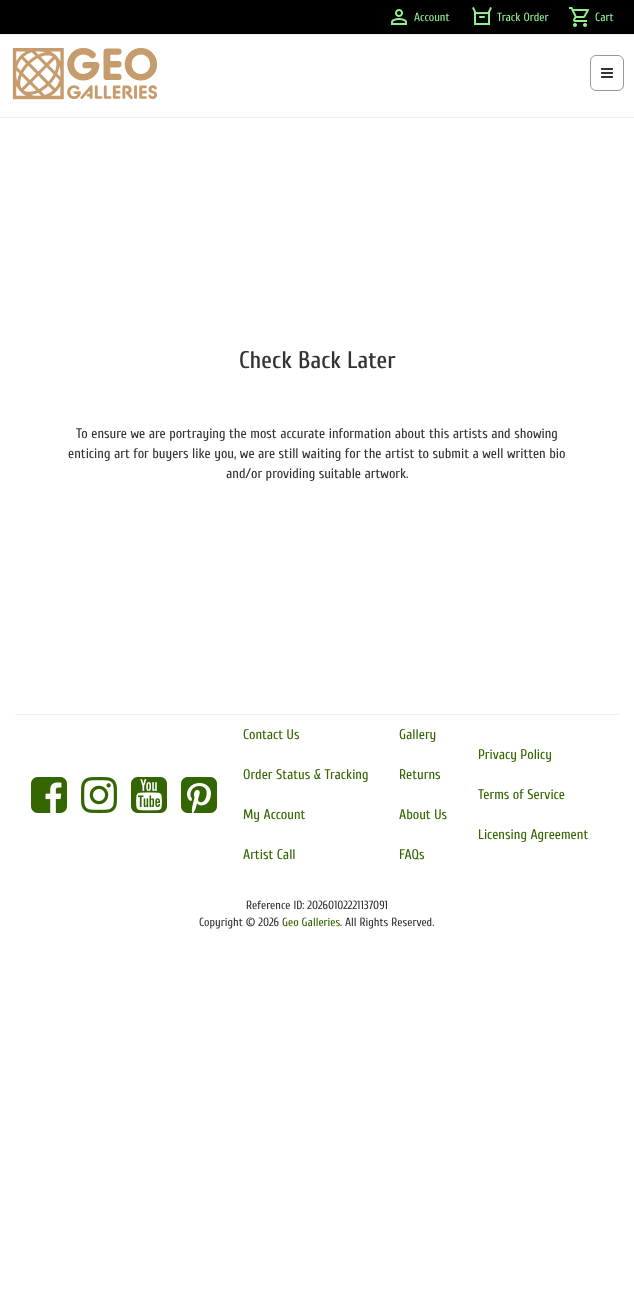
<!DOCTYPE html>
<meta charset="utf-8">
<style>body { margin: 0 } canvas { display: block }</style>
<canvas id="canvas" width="634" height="1316"></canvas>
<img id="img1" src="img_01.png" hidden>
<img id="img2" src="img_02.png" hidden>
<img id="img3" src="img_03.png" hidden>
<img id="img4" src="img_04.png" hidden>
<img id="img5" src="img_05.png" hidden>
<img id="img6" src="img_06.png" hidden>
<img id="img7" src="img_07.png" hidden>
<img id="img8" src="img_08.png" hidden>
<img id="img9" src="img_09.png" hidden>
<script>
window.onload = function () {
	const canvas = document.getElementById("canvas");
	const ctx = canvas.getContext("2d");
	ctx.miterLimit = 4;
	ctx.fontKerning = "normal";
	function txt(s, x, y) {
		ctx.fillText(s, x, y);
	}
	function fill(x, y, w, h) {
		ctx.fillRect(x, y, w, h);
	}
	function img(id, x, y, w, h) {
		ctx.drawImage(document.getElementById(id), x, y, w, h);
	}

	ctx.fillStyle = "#FFFFFF";
	fill(0, 0, 634, 1316);
	ctx.fillStyle = "#000000";
	fill(0, 0, 634, 34);
	ctx.fillStyle = "#EEEEEE";
	fill(0, 34, 634, 1);
	img("img1", 391, 9, 16, 16);
	img("img2", 472, 7, 20, 18);
	img("img3", 569, 7, 20, 20);
	img("img4", 12, 48, 146, 52);
	ctx.beginPath();
	ctx.roundRect(590.5, 55.5, 33, 35, 5.5);
	ctx.strokeStyle = "#999999";
	ctx.stroke();
	img("img5", 601, 68, 12, 10);
	fill(0, 117, 634, 1);
	fill(15, 714, 604, 1);
	img("img6", 31, 777, 36, 36);
	img("img7", 81, 777, 36, 36);
	img("img8", 131, 777, 36, 36);
	img("img9", 181, 777, 36, 36);
	ctx.font = "11.9px Cuprum";
	ctx.fillStyle = "#90EE90";
	txt("Account", 414, 21);
	txt("Track Order", 497, 21);
	txt("Cart", 595, 21);
	ctx.font = "500 24px Cuprum";
	ctx.fillStyle = "#333333";
	txt("Check Back Later", 239, 368);
	ctx.font = "14px Cuprum";
	txt("To ensure we are portraying the most accurate information about this artists and showing", 76, 438);
	txt("enticing art for buyers like you, we are still waiting for the artist to submit a well written bio", 68, 458);
	txt("and/or providing suitable artwork.", 226, 478);
	ctx.fillStyle = "#336600";
	txt("Contact Us", 243, 739);
	txt("Order Status & Tracking", 243, 779);
	txt("My Account", 243, 819);
	txt("Artist Call", 243, 859);
	txt("Gallery", 399, 739);
	txt("Returns", 399, 779);
	txt("About Us", 399, 819);
	txt("FAQs", 399, 859);
	txt("Privacy Policy", 478, 759);
	txt("Terms of Service", 478, 799);
	txt("Licensing Agreement", 478, 839);
	ctx.font = "11.9px Cuprum";
	ctx.fillStyle = "#333333";
	txt("Reference ID: 20260102221137091", 246, 909);
	txt("Copyright © 2026", 199, 926);
	ctx.fillStyle = "#336600";
	txt("Geo Galleries", 282, 926);
	ctx.fillStyle = "#333333";
	txt(". All Rights Reserved.", 340, 926);
};
</script>
